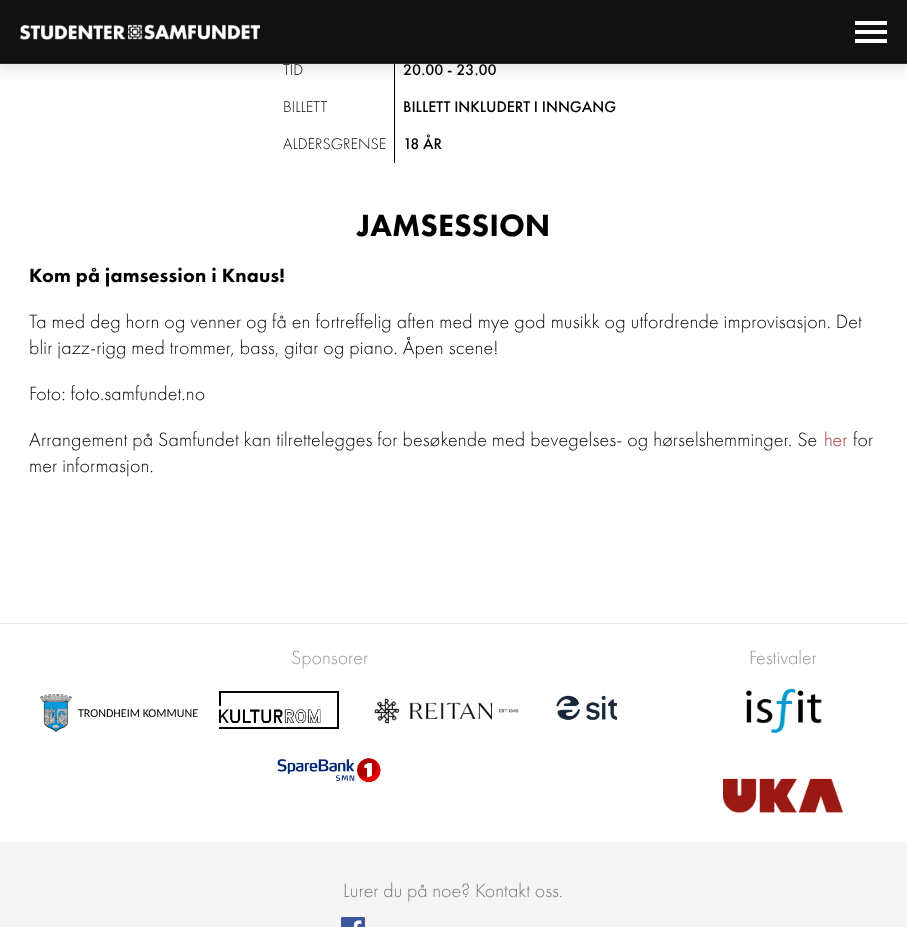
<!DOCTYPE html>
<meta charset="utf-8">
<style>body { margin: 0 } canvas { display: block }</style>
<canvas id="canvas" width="907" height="927"></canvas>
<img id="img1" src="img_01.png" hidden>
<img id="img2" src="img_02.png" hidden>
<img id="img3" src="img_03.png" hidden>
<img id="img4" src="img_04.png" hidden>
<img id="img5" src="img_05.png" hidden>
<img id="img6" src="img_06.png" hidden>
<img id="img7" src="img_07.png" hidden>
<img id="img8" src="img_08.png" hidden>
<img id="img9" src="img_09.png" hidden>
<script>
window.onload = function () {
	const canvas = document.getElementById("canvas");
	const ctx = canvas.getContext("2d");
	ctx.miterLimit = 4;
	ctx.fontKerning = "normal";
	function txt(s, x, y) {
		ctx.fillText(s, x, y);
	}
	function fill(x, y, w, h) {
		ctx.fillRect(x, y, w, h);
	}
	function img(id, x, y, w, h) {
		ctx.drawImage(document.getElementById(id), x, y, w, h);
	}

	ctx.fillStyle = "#FFFFFF";
	fill(0, 0, 907, 927);
	ctx.fillStyle = "#000000";
	fill(394, 64, 1, 99);
	ctx.fillStyle = "rgba(0, 0, 0, 0.1)";
	ctx.filter = "blur(7.5px)";
	ctx.beginPath();
	ctx.rect(-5, -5, 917, 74);
	ctx.fill();
	ctx.filter = "none";
	ctx.fillStyle = "#111111";
	fill(0, 0, 907, 63);
	ctx.fillStyle = "#323232";
	fill(0, 63, 907, 1);
	img("img1", 20, 24, 240, 16);
	ctx.fillStyle = "#FFFFFF";
	fill(855, 21, 32, 4);
	fill(855, 30, 32, 4);
	fill(855, 39, 32, 4);
	ctx.fillStyle = "#E6E6E6";
	fill(0, 623, 907, 1);
	img("img2", 40, 694, 32, 38);
	img("img3", 219, 691, 120, 38);
	img("img4", 374, 698, 145, 26);
	img("img5", 556, 695, 62, 26);
	img("img6", 277, 758, 104, 25);
	img("img7", 746, 688, 76, 45);
	img("img8", 723, 778, 120, 35);
	ctx.fillStyle = "#F5F5F5";
	fill(0, 842, 907, 85);
	img("img9", 341, 917, 24, 10);
	ctx.font = "300 16px Futura PT";
	ctx.fillStyle = "#000000";
	txt("TID", 283, 75);
	ctx.font = "500 16px Futura PT";
	txt("20.00 - 23.00", 403, 75);
	ctx.font = "300 16px Futura PT";
	txt("BILLETT", 283, 112);
	ctx.font = "500 16px Futura PT";
	txt("BILLETT INKLUDERT I INNGANG", 403, 112);
	ctx.font = "300 16px Futura PT";
	txt("ALDERSGRENSE", 283, 149);
	ctx.font = "500 16px Futura PT";
	txt("18 ÅR", 403, 149);
	ctx.font = "900 32px Futura PT";
	txt("JAMSESSION", 357, 236);
	ctx.letterSpacing = "0.16px";
	ctx.font = "900 20px Futura PT";
	txt("Kom på jamsession i Knaus!", 29, 282);
	ctx.font = "300 20px Futura PT";
	txt("Ta med deg horn og venner og få en fortreffelig aften med mye god musikk og utfordrende improvisasjon. Det", 29, 328);
	txt("blir jazz-rigg med trommer, bass, gitar og piano. Åpen scene!", 29, 354);
	txt("Foto: foto.samfundet.no", 29, 400);
	txt("Arrangement på Samfundet kan tilrettelegges for besøkende med bevegelses- og hørselshemminger. Se", 29, 446);
	ctx.fillStyle = "#A03033";
	txt("her", 824, 446);
	ctx.fillStyle = "#000000";
	txt("for", 853, 446);
	txt("mer informasjon.", 29, 472);
	ctx.letterSpacing = "0px";
	ctx.fillStyle = "#969696";
	txt("Sponsorer", 291, 664);
	ctx.font = "12px Carlito";
	ctx.fillStyle = "#000000";
	txt("TRONDHEIM KOMMUNE", 78, 717);
	ctx.font = "300 20px Futura PT";
	ctx.fillStyle = "#969696";
	txt("Festivaler", 749, 664);
	ctx.fillStyle = "#777777";
	txt("Lurer du på noe? Kontakt oss.", 343, 897);
};
</script>
